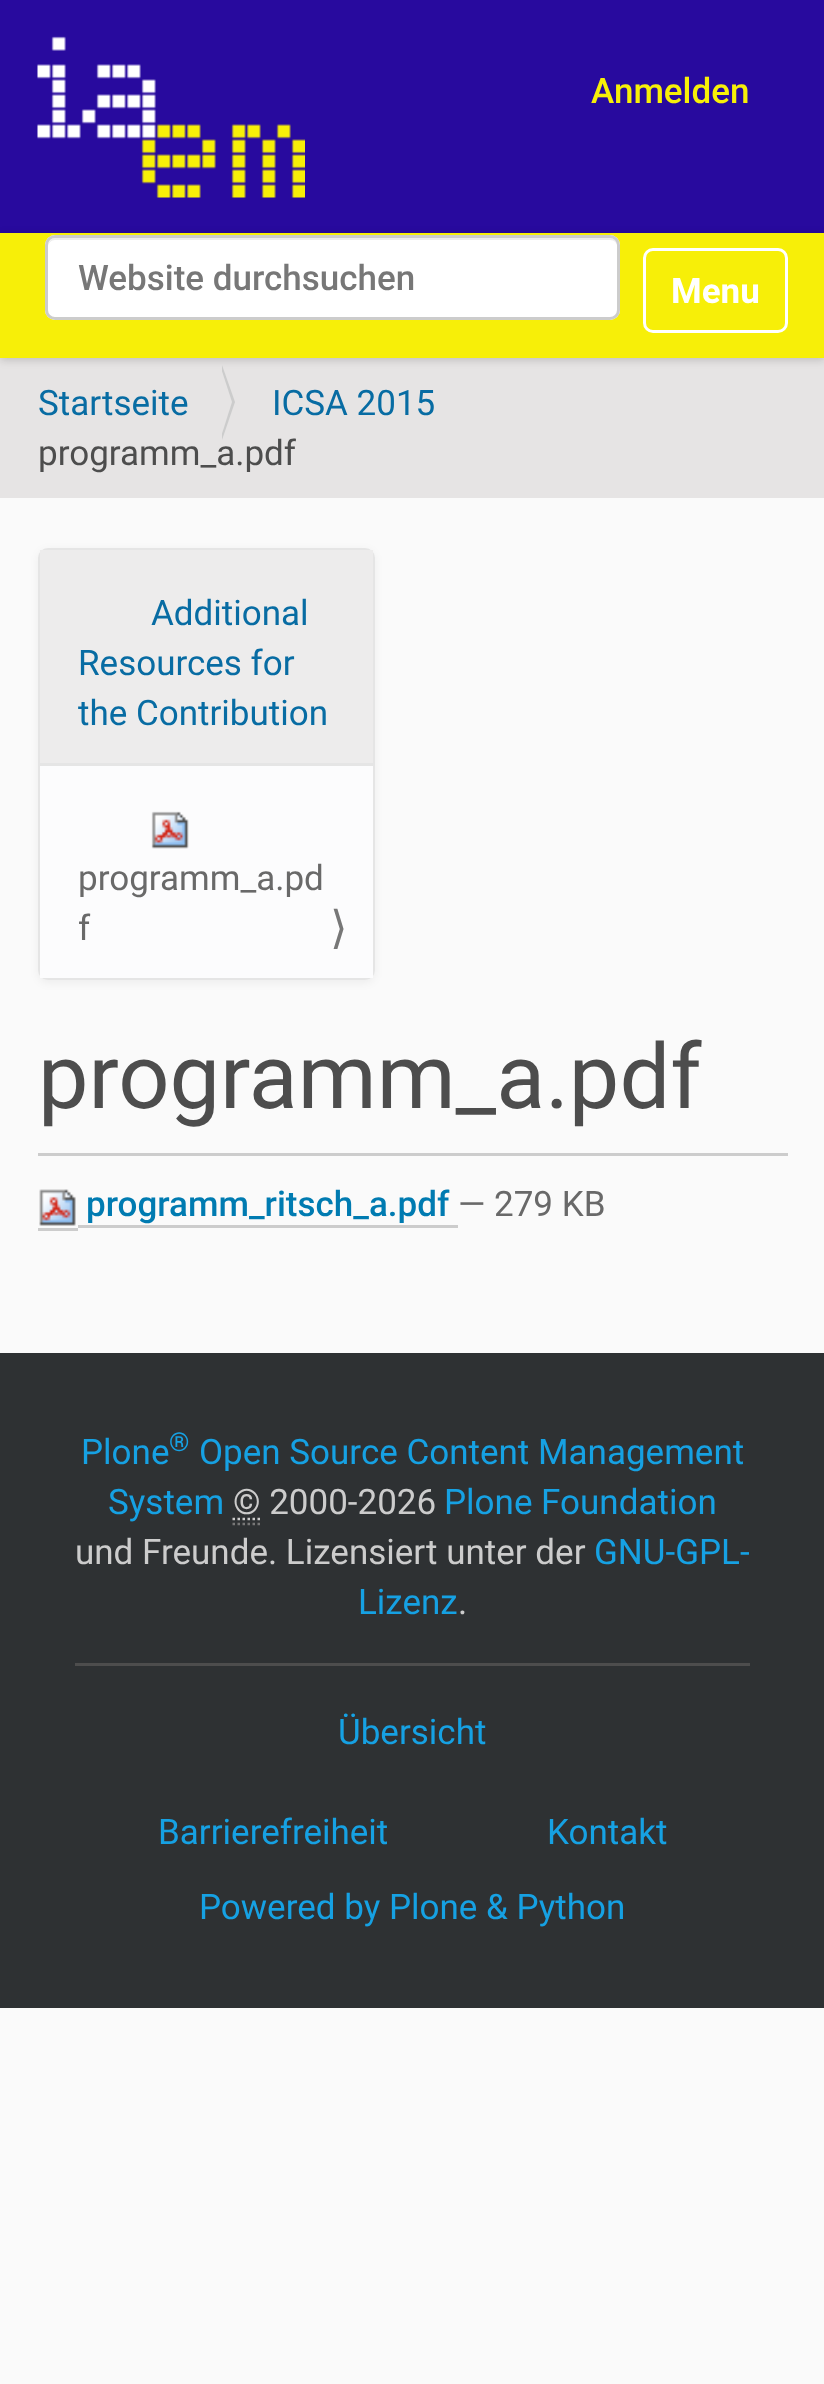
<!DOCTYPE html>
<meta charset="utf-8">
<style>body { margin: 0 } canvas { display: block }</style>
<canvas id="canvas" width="824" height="2384"></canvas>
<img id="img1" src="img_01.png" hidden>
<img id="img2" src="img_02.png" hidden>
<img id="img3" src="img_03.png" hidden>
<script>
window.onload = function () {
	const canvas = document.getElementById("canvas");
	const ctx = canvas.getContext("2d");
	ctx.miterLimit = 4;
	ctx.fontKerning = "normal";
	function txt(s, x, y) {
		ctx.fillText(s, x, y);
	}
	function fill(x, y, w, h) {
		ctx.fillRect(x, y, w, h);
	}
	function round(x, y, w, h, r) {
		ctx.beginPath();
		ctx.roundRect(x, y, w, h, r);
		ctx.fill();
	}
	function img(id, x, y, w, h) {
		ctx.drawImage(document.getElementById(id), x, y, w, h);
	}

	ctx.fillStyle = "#FAFAFA";
	fill(0, 0, 824, 2384);
	ctx.fillStyle = "#280A9E";
	fill(0, 0, 824, 233);
	img("img1", 37, 36, 268, 162);
	ctx.fillStyle = "#E6E4E4";
	fill(0, 358, 824, 140);
	ctx.fillStyle = "rgba(0, 0, 0, 0.17)";
	ctx.filter = "blur(4px)";
	ctx.beginPath();
	ctx.rect(0, 235, 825, 125);
	ctx.fill();
	ctx.filter = "none";
	ctx.fillStyle = "#F7EF08";
	fill(0, 233, 824, 125);
	ctx.fillStyle = "#FFFFFF";
	round(45, 235, 575, 85, 10);
	ctx.fillStyle = "#ECECEC";
	ctx.beginPath();
	ctx.moveTo(55, 240);
	ctx.lineTo(610, 240);
	ctx.bezierCurveTo(614, 240, 618, 243, 618, 248);
	ctx.bezierCurveTo(618, 243, 616, 238, 610, 238);
	ctx.lineTo(56, 238);
	ctx.bezierCurveTo(50, 238, 48, 243, 48, 248);
	ctx.bezierCurveTo(48, 243, 51, 240, 55, 240);
	ctx.closePath();
	ctx.fill();
	ctx.beginPath();
	ctx.roundRect(46.5, 236.5, 572, 82, 8.5);
	ctx.strokeStyle = "#CCCCCC";
	ctx.lineWidth = 3;
	ctx.stroke();
	ctx.beginPath();
	ctx.roundRect(644.5, 249.5, 142, 82, 8.5);
	ctx.strokeStyle = "#FFFFFF";
	ctx.stroke();
	ctx.fillStyle = "#CCCCCC";
	ctx.beginPath();
	ctx.moveTo(222, 440);
	ctx.lineTo(222, 365);
	ctx.lineTo(235, 402);
	ctx.closePath();
	ctx.fill();
	ctx.fillStyle = "#E6E4E4";
	ctx.beginPath();
	ctx.moveTo(220, 440);
	ctx.lineTo(220, 365);
	ctx.lineTo(232, 402);
	ctx.closePath();
	ctx.fill();
	ctx.fillStyle = "rgba(0, 0, 0, 0.05)";
	ctx.filter = "blur(4px)";
	ctx.beginPath();
	ctx.roundRect(38, 550, 337, 433, 10);
	ctx.fill();
	ctx.filter = "none";
	ctx.beginPath();
	ctx.roundRect(39.5, 549.5, 334, 429, 8.5);
	ctx.strokeStyle = "#E5E5E5";
	ctx.stroke();
	ctx.fillStyle = "#EDECEC";
	fill(40, 550, 333, 213);
	ctx.fillStyle = "#FCFCFD";
	fill(40, 766, 333, 212);
	ctx.fillStyle = "#E5E5E5";
	fill(40, 763, 333, 3);
	img("img2", 151, 811, 38, 38);
	ctx.fillStyle = "#CCCCCC";
	fill(38, 1153, 750, 3);
	img("img3", 39, 1189, 37, 37);
	fill(38, 1228, 40, 3);
	fill(78, 1225, 380, 3);
	ctx.fillStyle = "#2E3133";
	fill(0, 1353, 824, 655);
	ctx.fillStyle = "#4D4D4D";
	fill(75, 1663, 675, 3);
	ctx.beginPath();
	ctx.moveTo(232.5, 1524);
	ctx.lineTo(260, 1524);
	ctx.strokeStyle = "#777777";
	ctx.lineWidth = 2.5;
	ctx.setLineDash([2.5, 2.5]);
	ctx.stroke();
	ctx.beginPath();
	ctx.moveTo(232.5, 1519);
	ctx.lineTo(260, 1519);
	ctx.strokeStyle = "#CCCCCC";
	ctx.stroke();
	ctx.font = "500 35px Roboto";
	ctx.fillStyle = "#F7EF08";
	txt("Anmelden", 591, 103);
	ctx.fillStyle = "#777777";
	txt("Website durchsuchen", 78, 290);
	ctx.font = "bold 35px Roboto";
	ctx.fillStyle = "#FFFFFF";
	txt("Menu", 671, 303);
	ctx.font = "35px Roboto";
	ctx.fillStyle = "#086CA3";
	txt("Startseite", 38, 415);
	txt("ICSA 2015", 272, 415);
	ctx.fillStyle = "#4D4D4D";
	txt("programm_a.pdf", 38, 465);
	ctx.fillStyle = "#086CA3";
	txt("Additional", 151, 625);
	txt("Resources for", 78, 675);
	txt("the Contribution", 78, 725);
	ctx.fillStyle = "#696969";
	txt("programm_a.pd", 78, 890);
	txt("f", 78, 940);
	ctx.font = "45px DejaVu Sans";
	ctx.fillStyle = "#777777";
	txt("⟩", 330, 943);
	ctx.font = "90px Roboto";
	ctx.fillStyle = "#4D4D4D";
	txt("programm_a.pdf", 38, 1108);
	ctx.font = "500 35px Roboto";
	ctx.fillStyle = "#007BB1";
	txt("programm_ritsch_a.pdf", 86, 1216);
	ctx.font = "35px Roboto";
	ctx.fillStyle = "#696969";
	txt("— 279 KB", 458, 1216);
	ctx.fillStyle = "#16A1E3";
	txt("Plone", 81, 1464);
	ctx.font = "26px Roboto";
	txt("®", 169, 1451);
	ctx.font = "35px Roboto";
	txt("Open Source Content Management", 199, 1464);
	txt("System", 108, 1514);
	ctx.fillStyle = "#CCCCCC";
	txt("© 2000-2026", 233, 1514);
	ctx.fillStyle = "#16A1E3";
	txt("Plone Foundation", 444, 1514);
	ctx.fillStyle = "#CCCCCC";
	txt("und Freunde. Lizensiert unter der", 75, 1564);
	ctx.fillStyle = "#16A1E3";
	txt("GNU-GPL-", 594, 1564);
	txt("Lizenz", 358, 1614);
	ctx.fillStyle = "#CCCCCC";
	txt(".", 458, 1614);
	ctx.fillStyle = "#16A1E3";
	txt("Übersicht", 338, 1744);
	txt("Barrierefreiheit", 158, 1844);
	txt("Kontakt", 547, 1844);
	txt("Powered by Plone & Python", 199, 1919);
};
</script>
